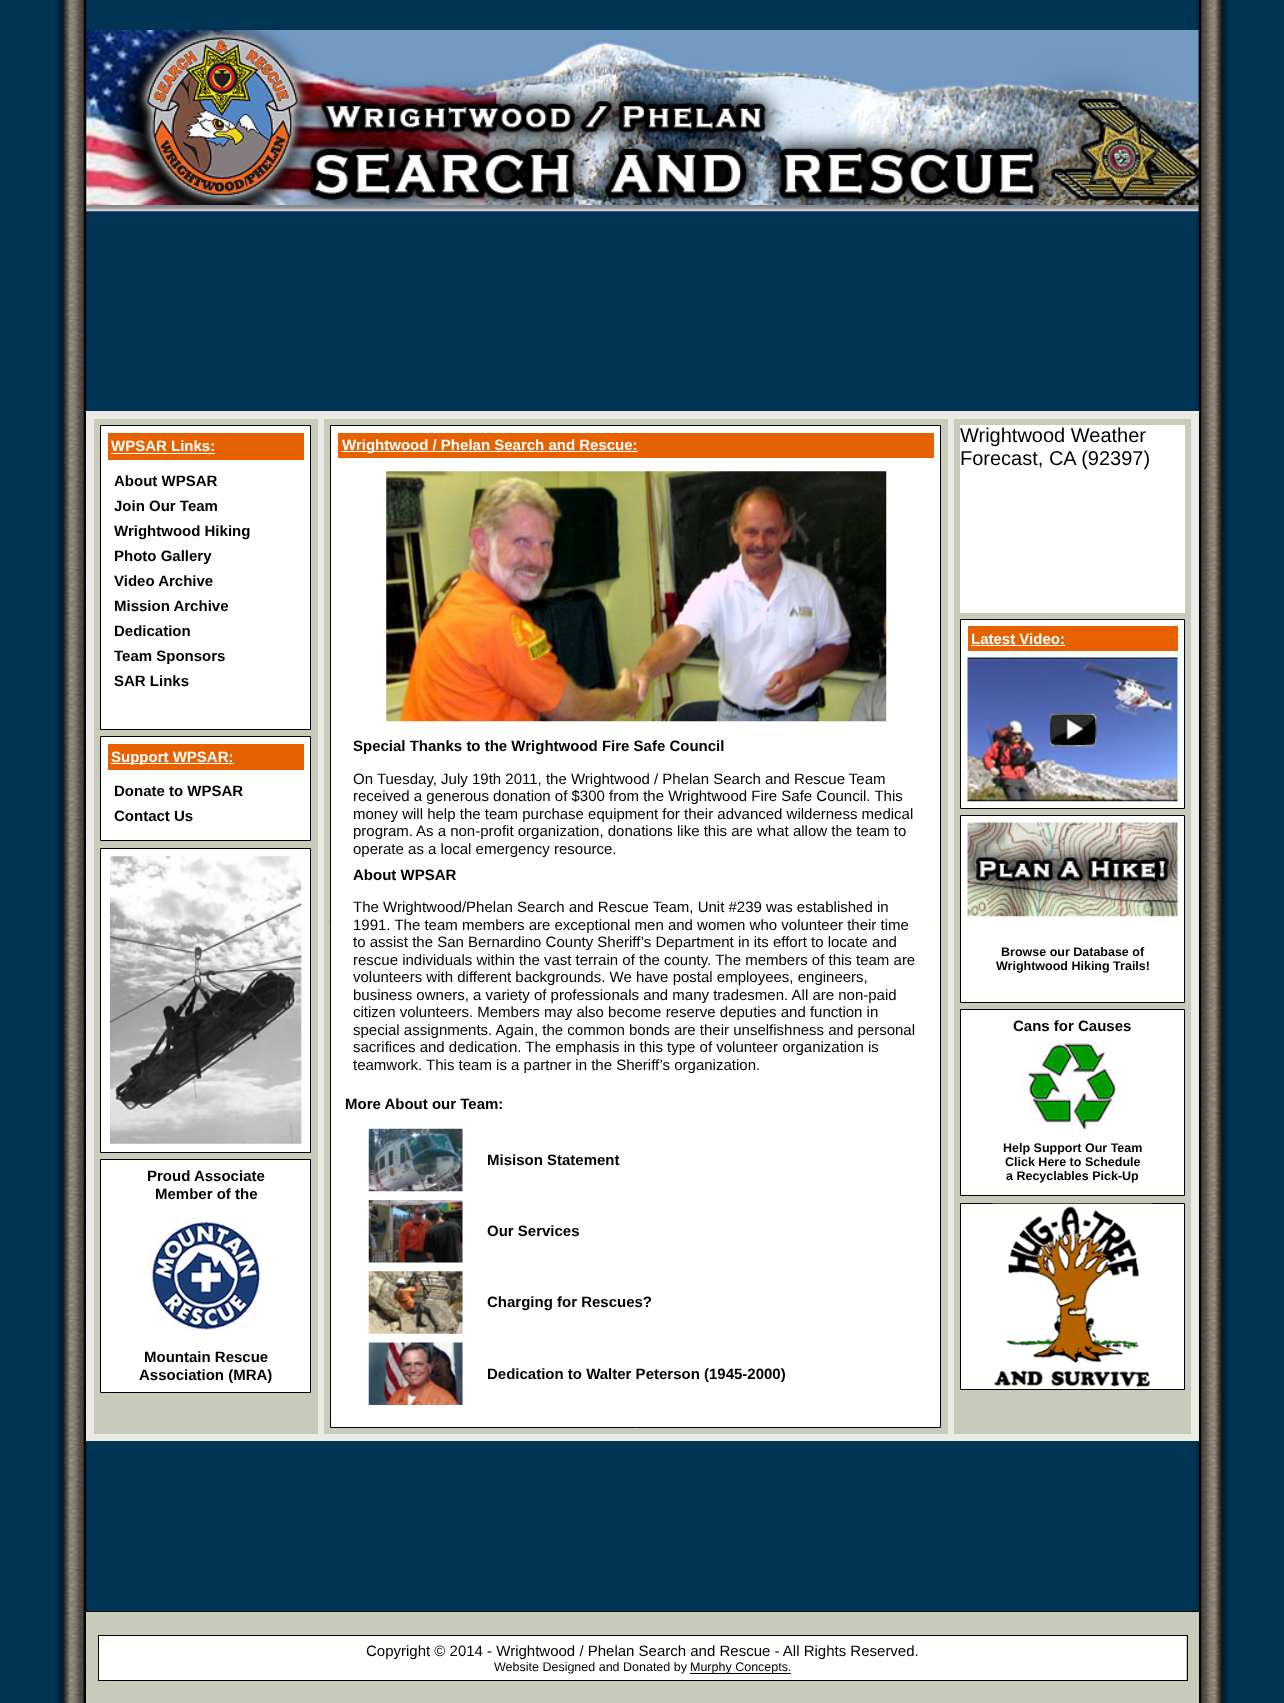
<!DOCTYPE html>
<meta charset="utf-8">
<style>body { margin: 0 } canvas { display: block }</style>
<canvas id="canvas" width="1284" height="1703"></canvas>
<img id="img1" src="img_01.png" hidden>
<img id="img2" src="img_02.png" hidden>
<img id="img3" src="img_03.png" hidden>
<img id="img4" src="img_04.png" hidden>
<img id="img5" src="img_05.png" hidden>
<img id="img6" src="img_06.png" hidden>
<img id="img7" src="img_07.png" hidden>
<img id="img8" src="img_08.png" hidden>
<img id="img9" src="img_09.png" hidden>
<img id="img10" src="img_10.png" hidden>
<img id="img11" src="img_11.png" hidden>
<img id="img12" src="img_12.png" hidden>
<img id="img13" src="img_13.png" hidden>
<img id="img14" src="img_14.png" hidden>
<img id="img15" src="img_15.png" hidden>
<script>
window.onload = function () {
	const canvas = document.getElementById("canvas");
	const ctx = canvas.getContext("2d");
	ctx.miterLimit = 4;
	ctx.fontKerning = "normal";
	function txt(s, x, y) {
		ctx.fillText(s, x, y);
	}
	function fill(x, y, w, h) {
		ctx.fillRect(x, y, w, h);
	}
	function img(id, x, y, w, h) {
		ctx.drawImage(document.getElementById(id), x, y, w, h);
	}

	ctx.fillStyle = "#003455";
	fill(0, 0, 1284, 1703);
	img("img1", 55, 0, 32, 1703);
	img("img2", 86, 30, 1113, 175);
	img("img3", 86, 205, 1113, 7);
	img("img4", 1198, 0, 32, 1703);
	ctx.fillStyle = "#EBEAE5";
	fill(86, 411, 1113, 1030);
	ctx.fillStyle = "#C8CBBA";
	fill(94, 419, 224, 1015);
	ctx.fillStyle = "#FFFFFF";
	ctx.beginPath();
	ctx.rect(100.5, 425.5, 210, 304);
	ctx.fill();
	ctx.strokeStyle = "#000000";
	ctx.stroke();
	ctx.fillStyle = "#E86100";
	fill(108, 433, 196, 27);
	ctx.fillStyle = "#FFFFFF";
	fill(111, 453, 104, 1);
	ctx.beginPath();
	ctx.rect(100.5, 736.5, 210, 104);
	ctx.fill();
	ctx.stroke();
	ctx.fillStyle = "#E86100";
	fill(108, 744, 196, 26);
	ctx.fillStyle = "#FFFFFF";
	fill(111, 763, 123, 1);
	ctx.beginPath();
	ctx.rect(100.5, 848.5, 210, 304);
	ctx.fill();
	ctx.stroke();
	img("img5", 110, 856, 192, 288);
	ctx.beginPath();
	ctx.rect(100.5, 1159.5, 210, 233);
	ctx.fill();
	ctx.stroke();
	img("img6", 150, 1219, 113, 113);
	ctx.fillStyle = "#C8CBBA";
	fill(324, 419, 624, 1015);
	ctx.fillStyle = "#FFFFFF";
	ctx.beginPath();
	ctx.rect(330.5, 425.5, 610, 1002);
	ctx.fill();
	ctx.stroke();
	ctx.fillStyle = "#E86100";
	fill(338, 433, 596, 25);
	ctx.fillStyle = "#FFFFFF";
	fill(341, 451, 297, 1);
	img("img7", 386, 471, 501, 251);
	img("img8", 368, 1128, 95, 64);
	img("img9", 368, 1200, 95, 63);
	img("img10", 368, 1271, 95, 63);
	img("img11", 368, 1342, 95, 63);
	ctx.fillStyle = "#C8CBBA";
	fill(954, 419, 237, 1015);
	ctx.fillStyle = "#FFFFFF";
	fill(960, 425, 225, 188);
	ctx.beginPath();
	ctx.rect(960.5, 619.5, 224, 189);
	ctx.fill();
	ctx.stroke();
	ctx.fillStyle = "#E86100";
	fill(968, 626, 210, 25);
	ctx.fillStyle = "#FFFFFF";
	fill(971, 645, 94, 1);
	img("img12", 967, 657, 211, 145);
	ctx.beginPath();
	ctx.rect(960.5, 815.5, 224, 187);
	ctx.fill();
	ctx.stroke();
	img("img13", 967, 822, 211, 95);
	ctx.beginPath();
	ctx.rect(960.5, 1009.5, 224, 186);
	ctx.fill();
	ctx.stroke();
	img("img14", 1022, 1041, 94, 88);
	ctx.beginPath();
	ctx.rect(960.5, 1203.5, 224, 186);
	ctx.fill();
	ctx.stroke();
	img("img15", 992, 1203, 161, 184);
	ctx.fillStyle = "#C8CBBA";
	fill(86, 1612, 1113, 91);
	ctx.fillStyle = "#000000";
	fill(86, 1611, 1113, 1);
	ctx.strokeRect(98.5, 1635.5, 1089, 45);
	ctx.fillStyle = "#FFFFFF";
	fill(99, 1636, 1087, 44);
	ctx.fillStyle = "#000000";
	fill(690, 1673, 101, 1);
	ctx.font = "bold 15px Liberation Sans";
	ctx.fillStyle = "#FFFFFF";
	txt("WPSAR Links:", 111, 451);
	ctx.fillStyle = "#000000";
	txt("About WPSAR", 114, 486);
	txt("Join Our Team", 114, 511);
	txt("Wrightwood Hiking", 114, 536);
	txt("Photo Gallery", 114, 561);
	txt("Video Archive", 114, 586);
	txt("Mission Archive", 114, 611);
	txt("Dedication", 114, 636);
	txt("Team Sponsors", 114, 661);
	txt("SAR Links", 114, 686);
	ctx.fillStyle = "#FFFFFF";
	txt("Support WPSAR:", 111, 762);
	ctx.fillStyle = "#000000";
	txt("Donate to WPSAR", 114, 796);
	txt("Contact Us", 114, 821);
	txt("Proud Associate", 147, 1181);
	txt("Member of the", 155, 1199);
	txt("Mountain Rescue", 144, 1362);
	txt("Association (MRA)", 139, 1380);
	ctx.fillStyle = "#FFFFFF";
	txt("Wrightwood / Phelan Search and Rescue:", 342, 450);
	ctx.fillStyle = "#000000";
	txt("Special Thanks to the Wrightwood Fire Safe Council", 353, 751);
	ctx.font = "15px Liberation Sans";
	txt("On Tuesday, July 19th 2011, the Wrightwood / Phelan Search and Rescue Team", 353, 784);
	txt("received a generous donation of $300 from the Wrightwood Fire Safe Council. This", 353, 801);
	txt("money will help the team purchase equipment for their advanced wilderness medical", 353, 819);
	txt("program.", 353, 836);
	txt("As a non-profit organization, donations like this are what allow the team to", 416, 836);
	txt("operate as a local emergency resource.", 353, 854);
	ctx.font = "bold 15px Liberation Sans";
	txt("About WPSAR", 353, 880);
	ctx.font = "15px Liberation Sans";
	txt("The Wrightwood/Phelan Search and Rescue Team, Unit #239 was established in", 353, 912);
	txt("1991. The team members are exceptional men and women who volunteer their time", 353, 930);
	txt("to assist the San Bernardino County Sheriff’s Department in its effort to locate and", 353, 947);
	txt("rescue individuals within the vast terrain of the county. The members of this team are", 353, 965);
	txt("volunteers with different backgrounds. We have postal employees, engineers,", 353, 982);
	txt("business owners, a variety of professionals and many tradesmen. All are non-paid", 353, 1000);
	txt("citizen volunteers. Members may also become reserve deputies and function in", 353, 1017);
	txt("special assignments. Again, the common bonds are their unselfishness and personal", 353, 1035);
	txt("sacrifices and dedication. The emphasis in this type of volunteer organization is", 353, 1052);
	txt("teamwork. This team is a partner in the Sheriff’s organization.", 353, 1070);
	ctx.font = "bold 15px Liberation Sans";
	txt("More About our Team:", 345, 1109);
	txt("Misison Statement", 487, 1165);
	txt("Our Services", 487, 1236);
	txt("Charging for Rescues?", 487, 1307);
	txt("Dedication to Walter Peterson (1945-2000)", 487, 1379);
	ctx.font = "20px Liberation Sans";
	txt("Wrightwood Weather", 960, 442);
	txt("Forecast, CA (92397)", 960, 465);
	ctx.font = "bold 15px Liberation Sans";
	ctx.fillStyle = "#FFFFFF";
	txt("Latest Video:", 971, 644);
	ctx.font = "bold 12.5px Liberation Sans";
	ctx.fillStyle = "#000000";
	txt("Browse our Database of", 1001, 956);
	txt("Wrightwood Hiking Trails!", 996, 970);
	ctx.font = "bold 15px Liberation Sans";
	txt("Cans for Causes", 1013, 1031);
	ctx.font = "bold 12.5px Liberation Sans";
	txt("Help Support Our Team", 1003, 1152);
	txt("Click Here to Schedule", 1005, 1166);
	txt("a Recyclables Pick-Up", 1006, 1180);
	ctx.font = "15px Liberation Sans";
	txt("Copyright © 2014 - Wrightwood / Phelan Search and Rescue - All Rights Reserved.", 366, 1656);
	ctx.font = "12.5px Liberation Sans";
	txt("Website Designed and Donated by", 494, 1671);
	txt("Murphy Concepts.", 690, 1671);
};
</script>
